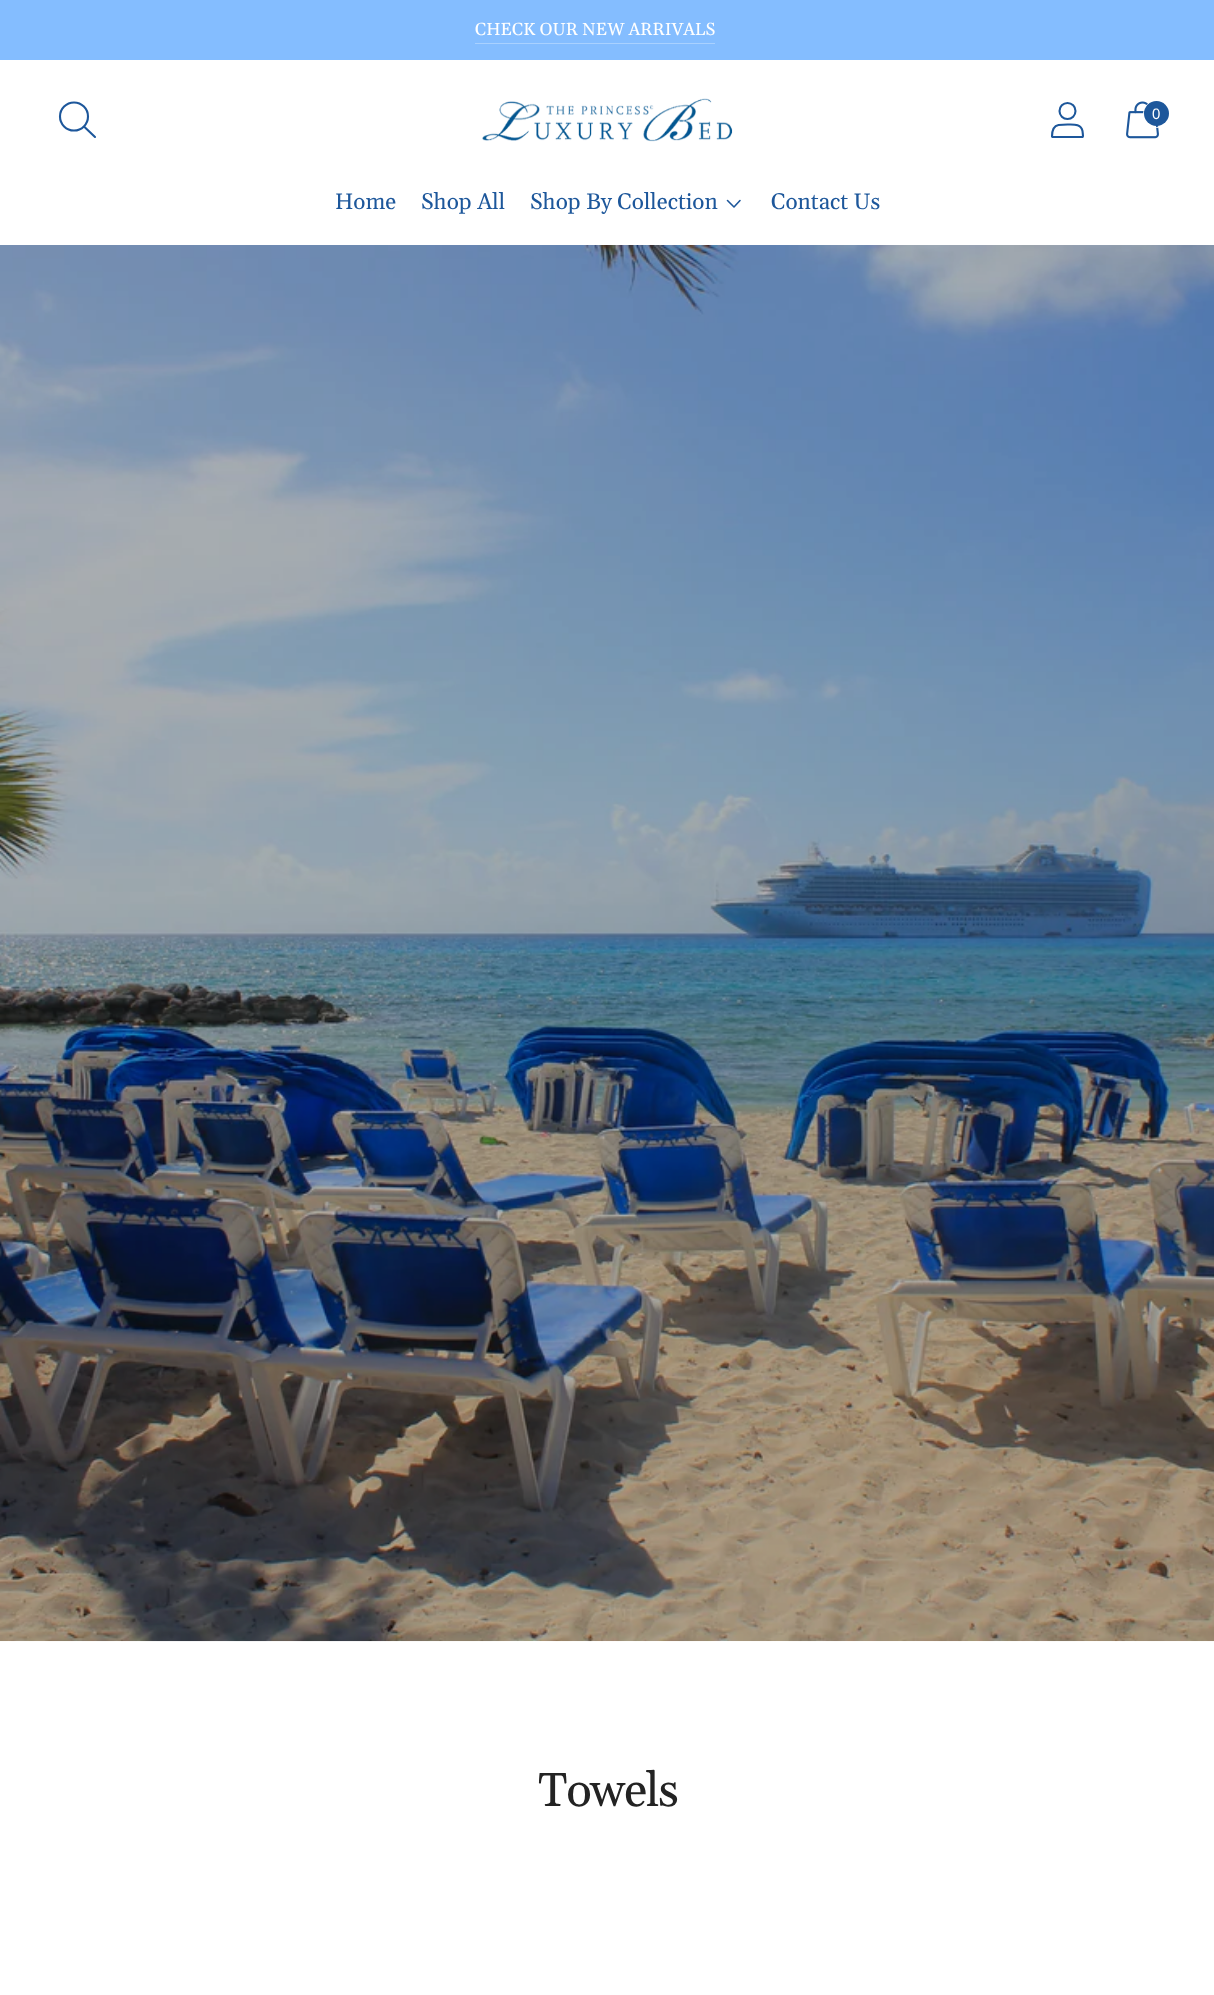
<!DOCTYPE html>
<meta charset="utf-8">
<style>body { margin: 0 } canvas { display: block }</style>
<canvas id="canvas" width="1214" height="1995"></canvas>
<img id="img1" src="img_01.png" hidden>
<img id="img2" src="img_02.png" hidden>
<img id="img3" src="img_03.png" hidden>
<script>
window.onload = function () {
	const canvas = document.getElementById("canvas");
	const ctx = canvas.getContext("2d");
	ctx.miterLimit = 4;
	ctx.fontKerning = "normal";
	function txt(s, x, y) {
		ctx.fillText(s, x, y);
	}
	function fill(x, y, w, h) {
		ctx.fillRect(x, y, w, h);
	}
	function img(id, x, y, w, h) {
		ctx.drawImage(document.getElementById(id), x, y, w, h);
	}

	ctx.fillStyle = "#FFFFFF";
	fill(0, 0, 1214, 1995);
	ctx.fillStyle = "#84BDFF";
	fill(0, 0, 1214, 60);
	ctx.fillStyle = "#A9D1FF";
	fill(475, 43, 240, 1);
	ctx.beginPath();
	ctx.arc(74, 116.5, 14, 0, Math.PI * 2);
	ctx.strokeStyle = "#1D579B";
	ctx.lineWidth = 2.1;
	ctx.stroke();
	ctx.beginPath();
	ctx.moveTo(84.5, 127);
	ctx.lineTo(95, 137);
	ctx.lineCap = "round";
	ctx.lineJoin = "round";
	ctx.stroke();
	img("img1", 482, 98, 251, 44);
	ctx.beginPath();
	ctx.arc(1067.5, 111, 8, 0, Math.PI * 2);
	ctx.stroke();
	ctx.beginPath();
	ctx.moveTo(1082.5, 137);
	ctx.bezierCurveTo(1083.5, 137, 1082.5, 132, 1082.5, 131);
	ctx.bezierCurveTo(1081, 123.5, 1073.5, 124.5, 1067.5, 124.5);
	ctx.lineTo(1058.5, 125);
	ctx.bezierCurveTo(1053, 126, 1052, 132, 1052, 136.5);
	ctx.lineTo(1052.5, 137);
	ctx.closePath();
	ctx.stroke();
	img("img2", 1126, 101, 33, 38);
	ctx.beginPath();
	ctx.roundRect(1143.5, 100.5, 26, 27, 13);
	ctx.strokeStyle = "#FFFFFF";
	ctx.lineWidth = 1;
	ctx.lineJoin = "miter";
	ctx.stroke();
	ctx.fillStyle = "#1D579B";
	ctx.beginPath();
	ctx.arc(1156.5, 113.5, 12.5, 0, Math.PI * 2);
	ctx.fill();
	ctx.beginPath();
	ctx.moveTo(727.5, 200.5);
	ctx.lineTo(734, 207);
	ctx.lineTo(740, 200.5);
	ctx.strokeStyle = "#1D579B";
	ctx.lineWidth = 1.6;
	ctx.lineJoin = "round";
	ctx.stroke();
	img("img3", 0, 245, 1214, 1397);
	ctx.font = "17.5px Gelasio";
	ctx.fillStyle = "#FFFFFF";
	txt("CHECK OUR NEW ARRIVALS", 475, 35);
	ctx.font = "15px Liberation Sans";
	txt("0", 1152, 119);
	ctx.font = "22.5px Gelasio";
	ctx.fillStyle = "#1D579B";
	txt("Home", 335, 209);
	txt("Shop All", 421, 209);
	txt("Shop By Collection", 530, 209);
	txt("Contact Us", 771, 209);
	ctx.letterSpacing = "-1.25px";
	ctx.font = "47.5px Gelasio";
	ctx.fillStyle = "#232323";
	txt("Towels", 538, 1806);
};
</script>
